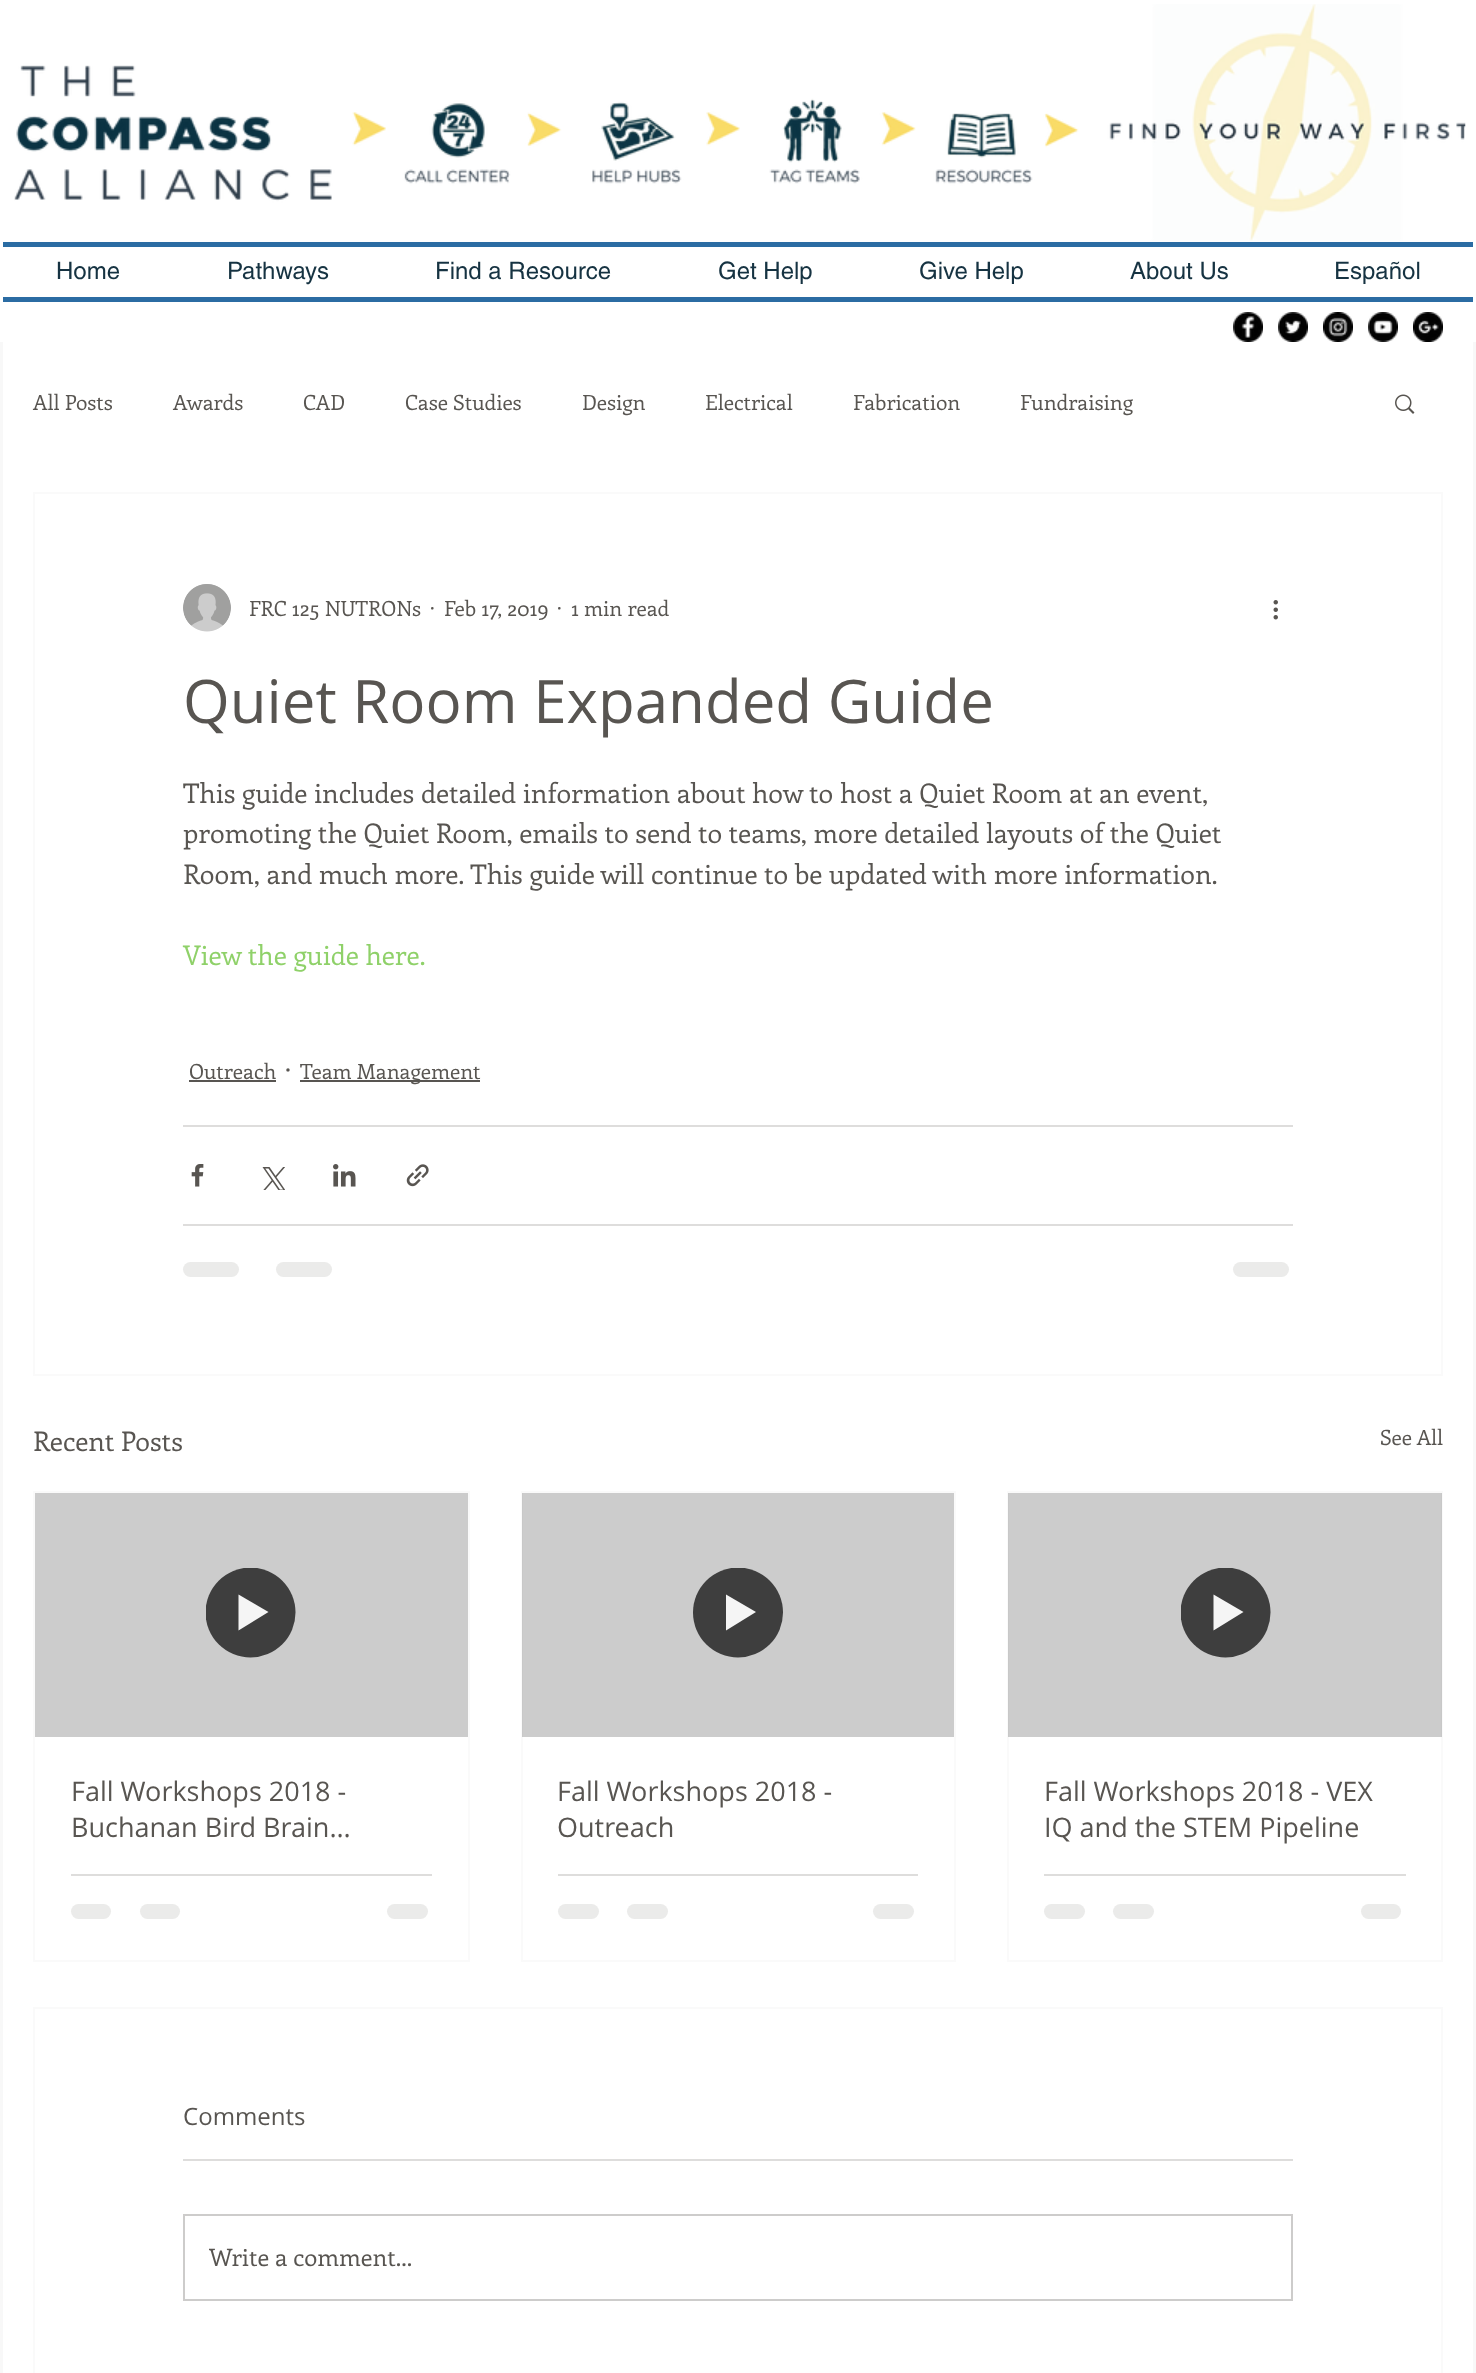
<!DOCTYPE html>
<meta charset="utf-8">
<style>body { margin: 0 } canvas { display: block }</style>
<canvas id="canvas" width="1476" height="2373"></canvas>
<img id="img1" src="img_01.png" hidden>
<img id="img2" src="img_02.png" hidden>
<img id="img3" src="img_03.png" hidden>
<img id="img4" src="img_04.png" hidden>
<img id="img5" src="img_05.png" hidden>
<img id="img6" src="img_06.png" hidden>
<img id="img7" src="img_07.png" hidden>
<img id="img8" src="img_08.png" hidden>
<img id="img9" src="img_09.png" hidden>
<img id="img10" src="img_10.png" hidden>
<img id="img11" src="img_11.png" hidden>
<img id="img12" src="img_12.png" hidden>
<img id="img13" src="img_13.png" hidden>
<script>
window.onload = function () {
	const canvas = document.getElementById("canvas");
	const ctx = canvas.getContext("2d");
	ctx.miterLimit = 4;
	ctx.fontKerning = "normal";
	function txt(s, x, y) {
		ctx.fillText(s, x, y);
	}
	function fill(x, y, w, h) {
		ctx.fillRect(x, y, w, h);
	}
	function round(x, y, w, h, r) {
		ctx.beginPath();
		ctx.roundRect(x, y, w, h, r);
		ctx.fill();
	}
	function img(id, x, y, w, h) {
		ctx.drawImage(document.getElementById(id), x, y, w, h);
	}

	ctx.fillStyle = "#F8F8F8";
	fill(0, 0, 1476, 2373);
	ctx.fillStyle = "#FFFFFF";
	fill(0, 0, 1476, 342);
	img("img1", 14, 4, 1452, 237);
	ctx.fillStyle = "#2B6CA3";
	fill(3, 242, 1470, 5);
	fill(3, 297, 1470, 5);
	img("img2", 1233, 312, 30, 30);
	img("img3", 1278, 312, 30, 30);
	img("img4", 1323, 312, 30, 30);
	img("img5", 1368, 312, 30, 30);
	img("img6", 1413, 312, 30, 30);
	ctx.fillStyle = "#FFFFFF";
	fill(3, 342, 1470, 2031);
	img("img7", 1395, 394, 20, 20);
	ctx.strokeStyle = "#FAFAFA";
	ctx.lineWidth = 2;
	ctx.strokeRect(34, 493, 1408, 882);
	img("img8", 183, 584, 48, 48);
	img("img9", 1273, 600, 5, 20);
	ctx.fillStyle = "#585551";
	fill(189, 1080, 87, 2);
	fill(300, 1080, 180, 2);
	ctx.fillStyle = "#DEDDDC";
	fill(183, 1125, 1110, 2);
	img("img10", 191, 1164, 13, 23);
	img("img11", 262, 1167, 23, 23);
	img("img12", 333, 1164, 23, 23);
	img("img13", 406, 1164, 23, 23);
	fill(183, 1224, 1110, 2);
	ctx.fillStyle = "#EBEBEA";
	round(183, 1262, 56, 15, 7.5);
	round(276, 1262, 56, 15, 7.5);
	round(1233, 1262, 56, 15, 7.5);
	ctx.strokeRect(34, 1492, 435, 469);
	ctx.fillStyle = "#CCCCCC";
	fill(35, 1493, 433, 244);
	ctx.save();
	ctx.beginPath();
	ctx.rect(206, 1568, 90, 90);
	ctx.clip();
	ctx.fillStyle = "#3E3E3E";
	ctx.beginPath();
	ctx.arc(250.5, 1612.5, 45, 0, Math.PI * 2);
	ctx.fill();
	ctx.restore();
	ctx.fillStyle = "#F5F5F5";
	ctx.beginPath();
	ctx.moveTo(238.5, 1594.5);
	ctx.lineTo(238.5, 1630.5);
	ctx.lineTo(268.5, 1612);
	ctx.closePath();
	ctx.fill();
	ctx.fillStyle = "#DEDDDC";
	fill(71, 1874, 361, 2);
	ctx.fillStyle = "#EBEBEA";
	round(71, 1904, 40, 15, 7.5);
	round(140, 1904, 40, 15, 7.5);
	round(387, 1904, 41, 15, 7.5);
	ctx.strokeRect(522, 1492, 433, 469);
	ctx.fillStyle = "rgba(0, 0, 0, 0.2)";
	fill(522, 1493, 432, 244);
	ctx.save();
	ctx.beginPath();
	ctx.rect(693, 1568, 90, 90);
	ctx.clip();
	ctx.fillStyle = "#3E3E3E";
	ctx.beginPath();
	ctx.arc(738, 1612.5, 45, 0, Math.PI * 2);
	ctx.fill();
	ctx.restore();
	ctx.fillStyle = "#F5F5F5";
	ctx.beginPath();
	ctx.moveTo(726, 1594.5);
	ctx.lineTo(726, 1630.5);
	ctx.lineTo(756, 1612);
	ctx.closePath();
	ctx.fill();
	ctx.fillStyle = "#DEDDDC";
	fill(558, 1874, 360, 2);
	ctx.fillStyle = "#EBEBEA";
	round(558, 1904, 41, 15, 7.5);
	round(627, 1904, 41, 15, 7.5);
	round(873, 1904, 41, 15, 7.5);
	ctx.strokeRect(1008, 1492, 434, 469);
	ctx.fillStyle = "rgba(0, 0, 0, 0.2)";
	fill(1008, 1493, 434, 244);
	ctx.save();
	ctx.beginPath();
	ctx.rect(1181, 1568, 90, 90);
	ctx.clip();
	ctx.fillStyle = "#3E3E3E";
	ctx.beginPath();
	ctx.arc(1225.5, 1612.5, 45, 0, Math.PI * 2);
	ctx.fill();
	ctx.restore();
	ctx.fillStyle = "#F5F5F5";
	ctx.beginPath();
	ctx.moveTo(1213.5, 1594.5);
	ctx.lineTo(1213.5, 1630.5);
	ctx.lineTo(1243.5, 1612);
	ctx.closePath();
	ctx.fill();
	ctx.fillStyle = "#DEDDDC";
	fill(1044, 1874, 362, 2);
	ctx.fillStyle = "#EBEBEA";
	round(1044, 1904, 41, 15, 7.5);
	round(1113, 1904, 41, 15, 7.5);
	round(1361, 1904, 40, 15, 7.5);
	ctx.strokeRect(34, 2008, 1408, 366);
	ctx.fillStyle = "#DEDDDC";
	fill(183, 2159, 1110, 2);
	ctx.strokeStyle = "#CDCCCB";
	ctx.strokeRect(184, 2215, 1108, 85);
	ctx.font = "24px helvetica";
	ctx.fillStyle = "#163342";
	txt("Home", 56, 279);
	txt("Pathways", 227, 279);
	txt("Find a Resource", 435, 279);
	txt("Get Help", 718, 279);
	txt("Give Help", 919, 279);
	txt("About Us", 1130, 279);
	txt("Español", 1334, 279);
	ctx.font = "21px Enriqueta";
	ctx.fillStyle = "#585551";
	txt("All Posts", 33, 410);
	txt("Awards", 173, 410);
	txt("CAD", 303, 410);
	txt("Case Studies", 405, 410);
	txt("Design", 582, 410);
	txt("Electrical", 705, 410);
	txt("Fabrication", 853, 410);
	txt("Fundraising", 1020, 410);
	txt("FRC 125 NUTRONs", 249, 616);
	txt("·", 430, 616);
	txt("Feb 17, 2019", 444, 616);
	txt("·", 557, 616);
	txt("1 min read", 571, 616);
	ctx.font = "60px Open Sans";
	txt("Quiet Room Expanded Guide", 183, 723);
	ctx.font = "27px Enriqueta";
	txt("This guide includes detailed information about how to host a Quiet Room at an event,", 183, 803);
	txt("promoting the Quiet Room, emails to send to teams, more detailed layouts of the Quiet", 183, 843);
	txt("Room, and much more. This guide will continue to be updated with more information.", 183, 884);
	ctx.fillStyle = "#8FD169";
	txt("View the guide here.", 183, 965);
	ctx.font = "21px Enriqueta";
	ctx.fillStyle = "#585551";
	txt("Outreach", 189, 1079);
	ctx.font = "27px Enriqueta";
	txt("·", 285, 1080);
	ctx.font = "21px Enriqueta";
	txt("Team Management", 300, 1079);
	ctx.font = "27px Enriqueta";
	txt("Recent Posts", 33, 1451);
	ctx.font = "21px Enriqueta";
	txt("See All", 1380, 1445);
	ctx.font = "27px Open Sans";
	txt("Fall Workshops 2018 -", 71, 1801);
	txt("Buchanan Bird Brain…", 71, 1837);
	txt("Fall Workshops 2018 -", 557, 1801);
	txt("Outreach", 557, 1837);
	txt("Fall Workshops 2018 - VEX", 1044, 1801);
	txt("IQ and the STEM Pipeline", 1044, 1837);
	ctx.font = "24px Open Sans";
	txt("Comments", 183, 2125);
	ctx.save();
	ctx.beginPath();
	ctx.rect(209, 2240, 1059, 36);
	ctx.clip();
	ctx.font = "24px Enriqueta";
	txt("Write a comment...", 209, 2266);
	ctx.restore();
};
</script>
